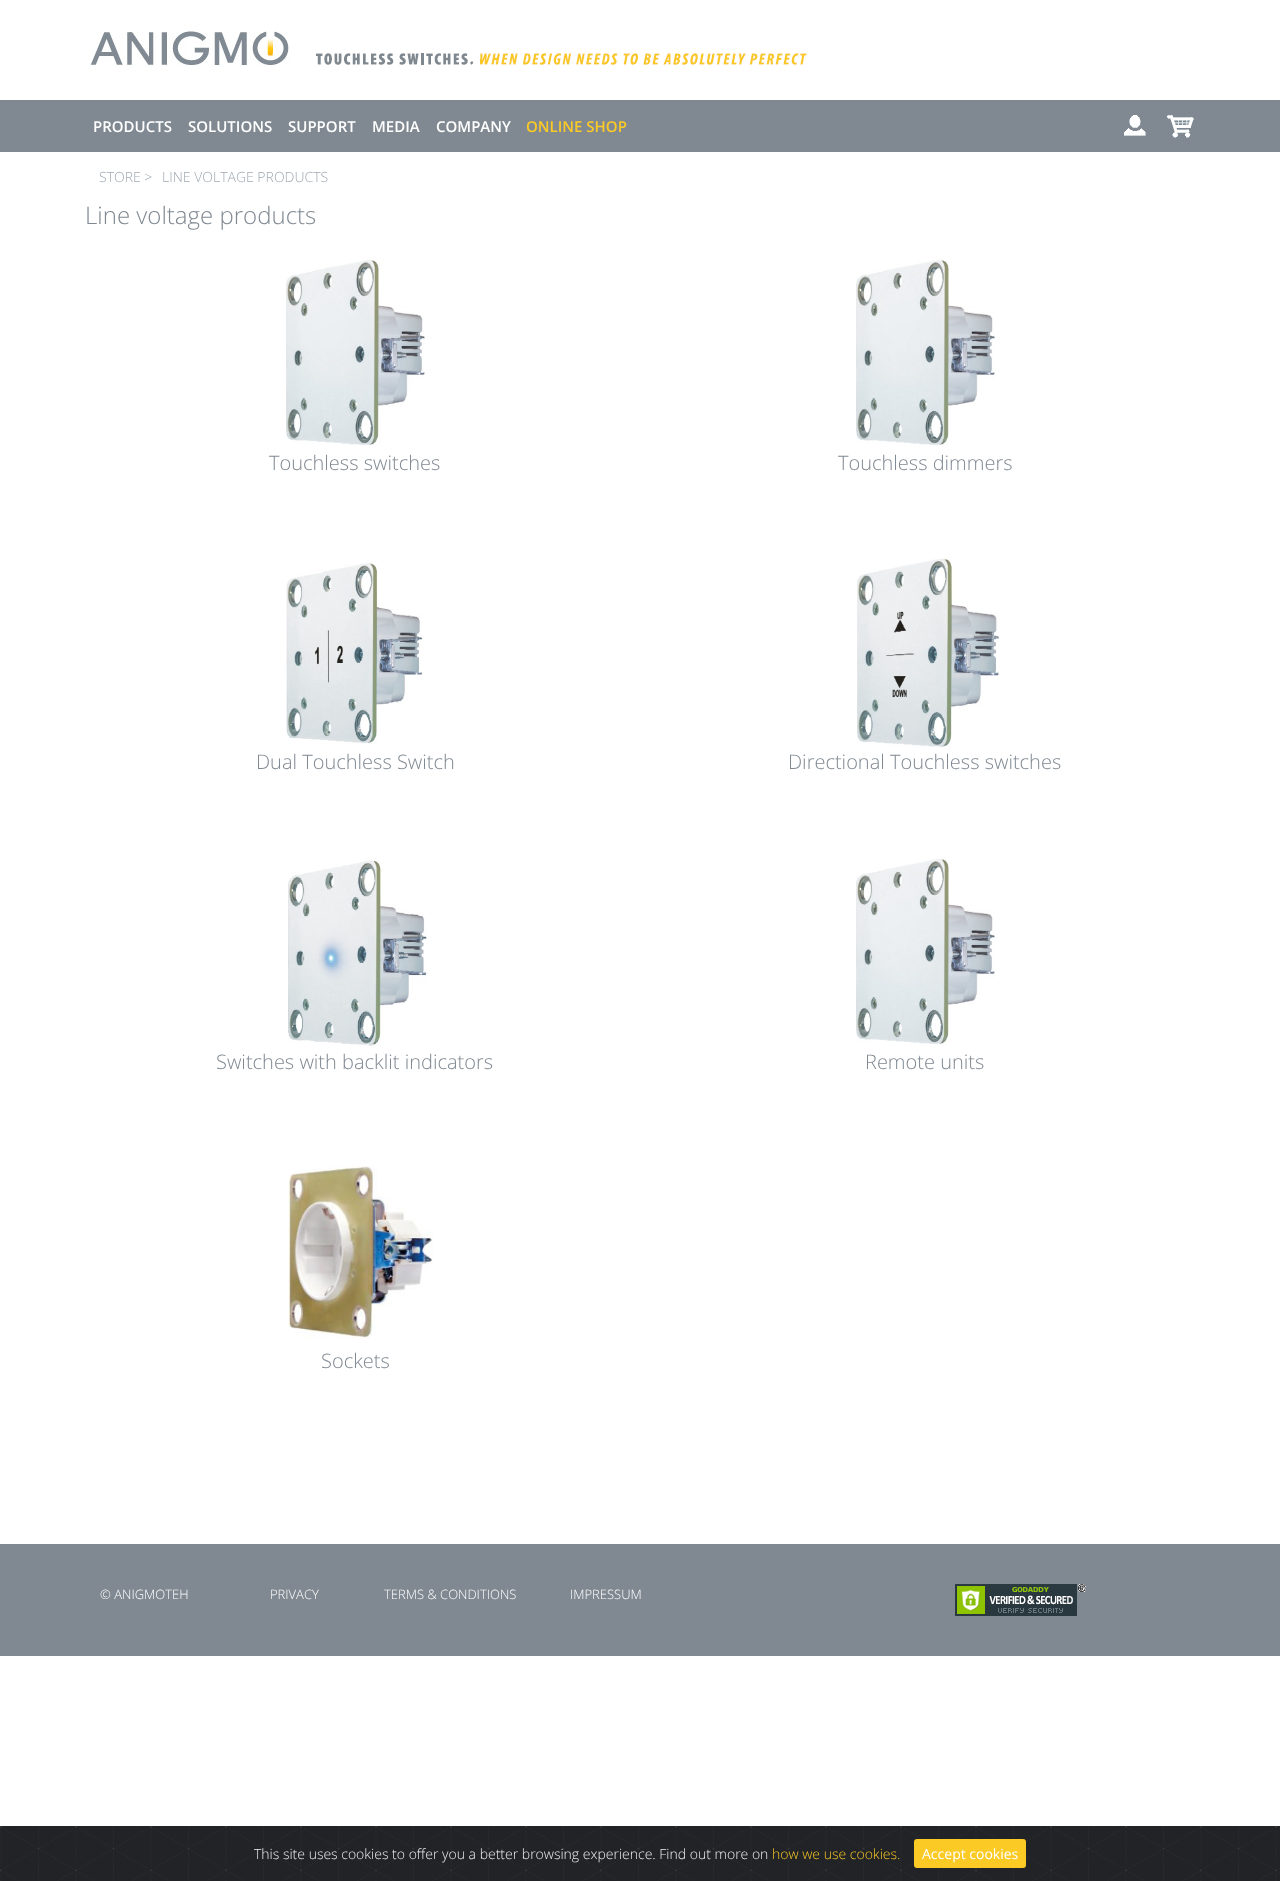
<!DOCTYPE html>
<meta charset="utf-8">
<style>body { margin: 0 } canvas { display: block }</style>
<canvas id="canvas" width="1280" height="1881"></canvas>
<img id="img1" src="img_01.png" hidden>
<img id="img2" src="img_02.png" hidden>
<img id="img3" src="img_03.png" hidden>
<img id="img4" src="img_04.png" hidden>
<img id="img5" src="img_05.png" hidden>
<img id="img6" src="img_06.png" hidden>
<img id="img7" src="img_07.png" hidden>
<img id="img8" src="img_08.png" hidden>
<img id="img9" src="img_09.png" hidden>
<img id="img10" src="img_10.png" hidden>
<img id="img11" src="img_11.png" hidden>
<img id="img12" src="img_12.png" hidden>
<script>
window.onload = function () {
	const canvas = document.getElementById("canvas");
	const ctx = canvas.getContext("2d");
	ctx.miterLimit = 4;
	ctx.fontKerning = "normal";
	function txt(s, x, y) {
		ctx.fillText(s, x, y);
	}
	function fill(x, y, w, h) {
		ctx.fillRect(x, y, w, h);
	}
	function round(x, y, w, h, r) {
		ctx.beginPath();
		ctx.roundRect(x, y, w, h, r);
		ctx.fill();
	}
	function img(id, x, y, w, h) {
		ctx.drawImage(document.getElementById(id), x, y, w, h);
	}

	ctx.fillStyle = "#FFFFFF";
	fill(0, 0, 1280, 1881);
	img("img1", 91, 31, 716, 36);
	ctx.fillStyle = "#808992";
	fill(0, 100, 1280, 52);
	img("img2", 1124, 115, 22, 21);
	img("img3", 1167, 115, 27, 23);
	img("img4", 285, 259, 140, 187);
	img("img5", 855, 259, 140, 187);
	img("img6", 286, 562, 137, 182);
	img("img7", 857, 558, 143, 190);
	img("img8", 288, 860, 140, 186);
	img("img9", 855, 858, 140, 187);
	img("img10", 288, 1166, 145, 173);
	fill(0, 1544, 1280, 112);
	img("img11", 955, 1584, 131, 32);
	img("img12", 0, 1826, 1280, 55);
	ctx.fillStyle = "#FBCA25";
	round(914, 1839, 112, 29, 3);
	ctx.font = "600 15px Open Sans";
	ctx.fillStyle = "#FFFFFF";
	txt("PRODUCTS", 93, 132);
	txt("SOLUTIONS", 188, 132);
	txt("SUPPORT", 288, 132);
	txt("MEDIA", 372, 132);
	txt("COMPANY", 436, 132);
	ctx.fillStyle = "#FBCA25";
	txt("ONLINE SHOP", 526, 132);
	ctx.font = "300 14px Open Sans";
	ctx.fillStyle = "#A0A9B2";
	txt("STORE >", 99, 182);
	txt("LINE VOLTAGE PRODUCTS", 162, 182);
	ctx.font = "300 24px Open Sans";
	ctx.fillStyle = "#808992";
	txt("Line voltage products", 85, 224);
	ctx.font = "300 20px Open Sans";
	txt("Touchless switches", 269, 470);
	txt("Touchless dimmers", 838, 470);
	txt("Dual Touchless Switch", 256, 769);
	txt("Directional Touchless switches", 788, 769);
	txt("Switches with backlit indicators", 216, 1069);
	txt("Remote units", 865, 1069);
	txt("Sockets", 321, 1368);
	ctx.font = "300 13px Open Sans";
	ctx.fillStyle = "#FFFFFF";
	txt("© ANIGMOTEH", 100, 1599);
	txt("PRIVACY", 270, 1599);
	txt("TERMS & CONDITIONS", 384, 1599);
	txt("IMPRESSUM", 570, 1599);
	ctx.font = "300 14px Open Sans";
	ctx.fillStyle = "#ECF0F1";
	txt("This site uses cookies to offer you a better browsing experience. Find out more on", 254, 1859);
	ctx.fillStyle = "#FBCA25";
	txt("how we use cookies.", 772, 1859);
	ctx.font = "14px Open Sans";
	ctx.fillStyle = "#FFFFFF";
	txt("Accept cookies", 922, 1859);
};
</script>
